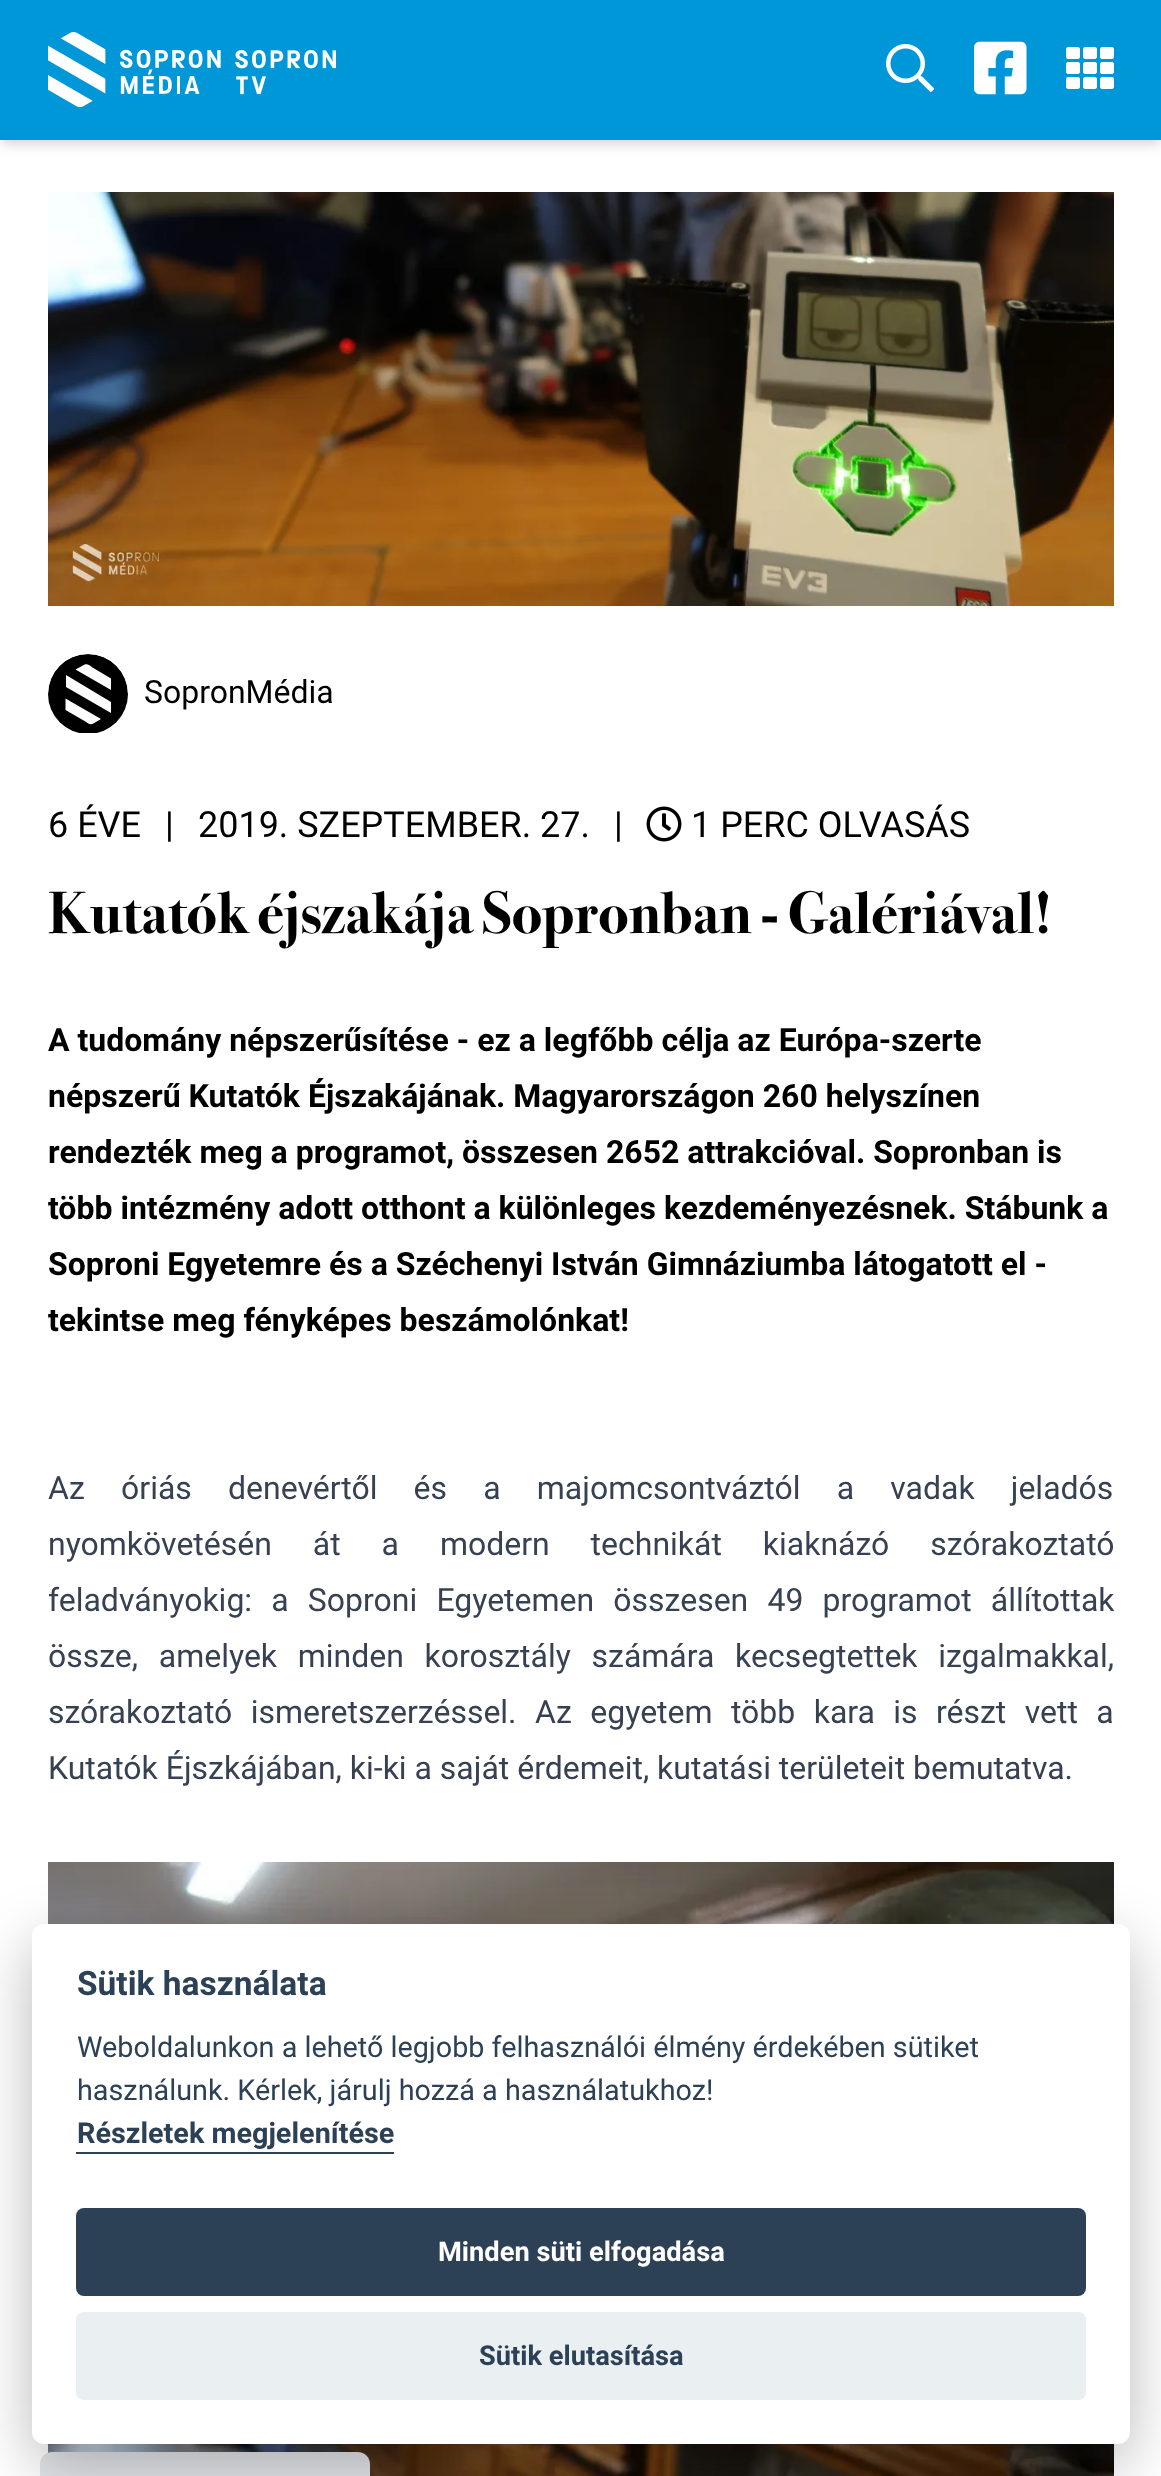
<!DOCTYPE html>
<meta charset="utf-8">
<style>body { margin: 0 } canvas { display: block }</style>
<canvas id="canvas" width="1161" height="2476"></canvas>
<img id="img1" src="img_01.png" hidden>
<img id="img2" src="img_02.png" hidden>
<img id="img3" src="img_03.png" hidden>
<img id="img4" src="img_04.png" hidden>
<img id="img5" src="img_05.png" hidden>
<img id="img6" src="img_06.png" hidden>
<img id="img7" src="img_07.png" hidden>
<script>
window.onload = function () {
	const canvas = document.getElementById("canvas");
	const ctx = canvas.getContext("2d");
	ctx.miterLimit = 4;
	ctx.fontKerning = "normal";
	function txt(s, x, y) {
		ctx.fillText(s, x, y);
	}
	function fill(x, y, w, h) {
		ctx.fillRect(x, y, w, h);
	}
	function round(x, y, w, h, r) {
		ctx.beginPath();
		ctx.roundRect(x, y, w, h, r);
		ctx.fill();
	}
	function img(id, x, y, w, h) {
		ctx.drawImage(document.getElementById(id), x, y, w, h);
	}

	ctx.fillStyle = "#FFFFFF";
	fill(0, 0, 1161, 2476);
	ctx.fillStyle = "rgba(0, 0, 0, 0.06)";
	ctx.filter = "blur(4px)";
	ctx.beginPath();
	ctx.rect(2, 6, 1158, 136);
	ctx.fill();
	ctx.filter = "none";
	ctx.fillStyle = "rgba(0, 0, 0, 0.1)";
	ctx.filter = "blur(6px)";
	ctx.beginPath();
	ctx.rect(2, 10, 1158, 136);
	ctx.fill();
	ctx.filter = "none";
	ctx.fillStyle = "#0097D8";
	fill(0, 0, 1161, 140);
	img("img1", 48, 32, 288, 76);
	img("img2", 886, 44, 48, 48);
	img("img3", 974, 41, 53, 54);
	img("img4", 1066, 47, 48, 42);
	img("img5", 48, 192, 1066, 414);
	ctx.save();
	ctx.beginPath();
	ctx.roundRect(48, 654, 80, 80, 40);
	ctx.clip();
	ctx.fillStyle = "#000000";
	ctx.beginPath();
	ctx.roundRect(48, 654, 80, 79, [40, 40, 0, 0]);
	ctx.fill();
	ctx.restore();
	ctx.fillStyle = "#FFFFFF";
	ctx.beginPath();
	ctx.moveTo(101, 719);
	ctx.lineTo(95, 722.5);
	ctx.bezierCurveTo(90.5, 725.5, 89, 724, 84.5, 721);
	ctx.lineTo(65.5, 710);
	ctx.lineTo(65.5, 698.5);
	ctx.closePath();
	ctx.fill();
	ctx.beginPath();
	ctx.moveTo(111, 713);
	ctx.lineTo(111, 702);
	ctx.lineTo(66, 675);
	ctx.lineTo(66, 687);
	ctx.closePath();
	ctx.fill();
	ctx.beginPath();
	ctx.moveTo(75.5, 669.5);
	ctx.lineTo(82, 666);
	ctx.bezierCurveTo(86.5, 663, 88, 664.5, 92.5, 667.5);
	ctx.lineTo(111, 678.5);
	ctx.lineTo(111, 690);
	ctx.closePath();
	ctx.fill();
	img("img6", 646, 806, 36, 36);
	img("img7", 48, 1862, 1066, 614);
	ctx.fillStyle = "#E5E7EB";
	ctx.beginPath();
	ctx.moveTo(52, 2452);
	ctx.lineTo(358, 2452);
	ctx.bezierCurveTo(364.5, 2452, 370, 2457.5, 370, 2464);
	ctx.lineTo(370, 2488);
	ctx.lineTo(40, 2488);
	ctx.lineTo(40, 2464);
	ctx.bezierCurveTo(40, 2457.5, 45.5, 2452, 52, 2452);
	ctx.closePath();
	ctx.fill();
	ctx.fillStyle = "rgba(2, 2, 3, 0.28)";
	ctx.filter = "blur(30px)";
	ctx.beginPath();
	ctx.roundRect(32, 1944, 1098, 520, 12);
	ctx.fill();
	ctx.filter = "none";
	ctx.fillStyle = "#FFFFFF";
	round(32, 1924, 1098, 520, 12);
	ctx.fillStyle = "#2D4156";
	fill(76, 2152, 318, 2);
	round(76, 2208, 1010, 88, 8);
	ctx.fillStyle = "#EAEFF2";
	round(76, 2312, 1010, 88, 8);
	ctx.font = "32px Roboto";
	ctx.fillStyle = "#000000";
	txt("SopronMédia", 144, 703);
	ctx.font = "36px Roboto";
	txt("6 ÉVE", 48, 837);
	txt("|", 165, 837);
	txt("2019. SZEPTEMBER. 27.", 198, 837);
	txt("|", 614, 837);
	txt("1 PERC OLVASÁS", 691, 837);
	ctx.font = "bold 60px 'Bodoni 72'";
	txt("Kutatók éjszakája Sopronban - Galériával!", 48, 933);
	ctx.font = "bold 32px Roboto";
	txt("A tudomány népszerűsítése - ez a legfőbb célja az Európa-szerte", 48, 1051);
	txt("népszerű Kutatók Éjszakájának. Magyarországon 260 helyszínen", 48, 1107);
	txt("rendezték meg a programot, összesen 2652 attrakcióval. Sopronban is", 48, 1163);
	txt("több intézmény adott otthont a különleges kezdeményezésnek. Stábunk a", 48, 1219);
	txt("Soproni Egyetemre és a Széchenyi István Gimnáziumba látogatott el -", 48, 1275);
	txt("tekintse meg fényképes beszámolónkat!", 48, 1331);
	ctx.wordSpacing = "28.25px";
	ctx.font = "32px Roboto";
	ctx.fillStyle = "#374151";
	txt("Az óriás denevértől és a majomcsontváztól a vadak jeladós", 48, 1499);
	ctx.wordSpacing = "33px";
	txt("nyomkövetésén át a modern technikát kiaknázó szórakoztató", 48, 1555);
	ctx.wordSpacing = "11.25px";
	txt("feladványokig: a Soproni Egyetemen összesen 49 programot állítottak", 48, 1611);
	ctx.wordSpacing = "12.75px";
	txt("össze, amelyek minden korosztály számára kecsegtettek izgalmakkal,", 48, 1667);
	ctx.wordSpacing = "10.5px";
	txt("szórakoztató ismeretszerzéssel. Az egyetem több kara is részt vett a", 48, 1723);
	ctx.wordSpacing = "0px";
	txt("Kutatók Éjszkájában, ki-ki a saját érdemeit, kutatási területeit bemutatva.", 48, 1779);
	ctx.font = "bold 33.5px Roboto";
	ctx.fillStyle = "#2D4156";
	txt("Sütik használata", 77, 1995);
	ctx.font = "28.8px Roboto";
	txt("Weboldalunkon a lehető legjobb felhasználói élmény érdekében sütiket", 77, 2057);
	txt("használunk. Kérlek, járulj hozzá a használatukhoz!", 77, 2100);
	ctx.font = "bold 28.8px Roboto";
	txt("Részletek megjelenítése", 77, 2143);
	ctx.font = "bold 27.25px Roboto";
	ctx.fillStyle = "#FFFFFF";
	txt("Minden süti elfogadása", 438, 2261);
	ctx.fillStyle = "#2D4156";
	txt("Sütik elutasítása", 479, 2365);
};
</script>
